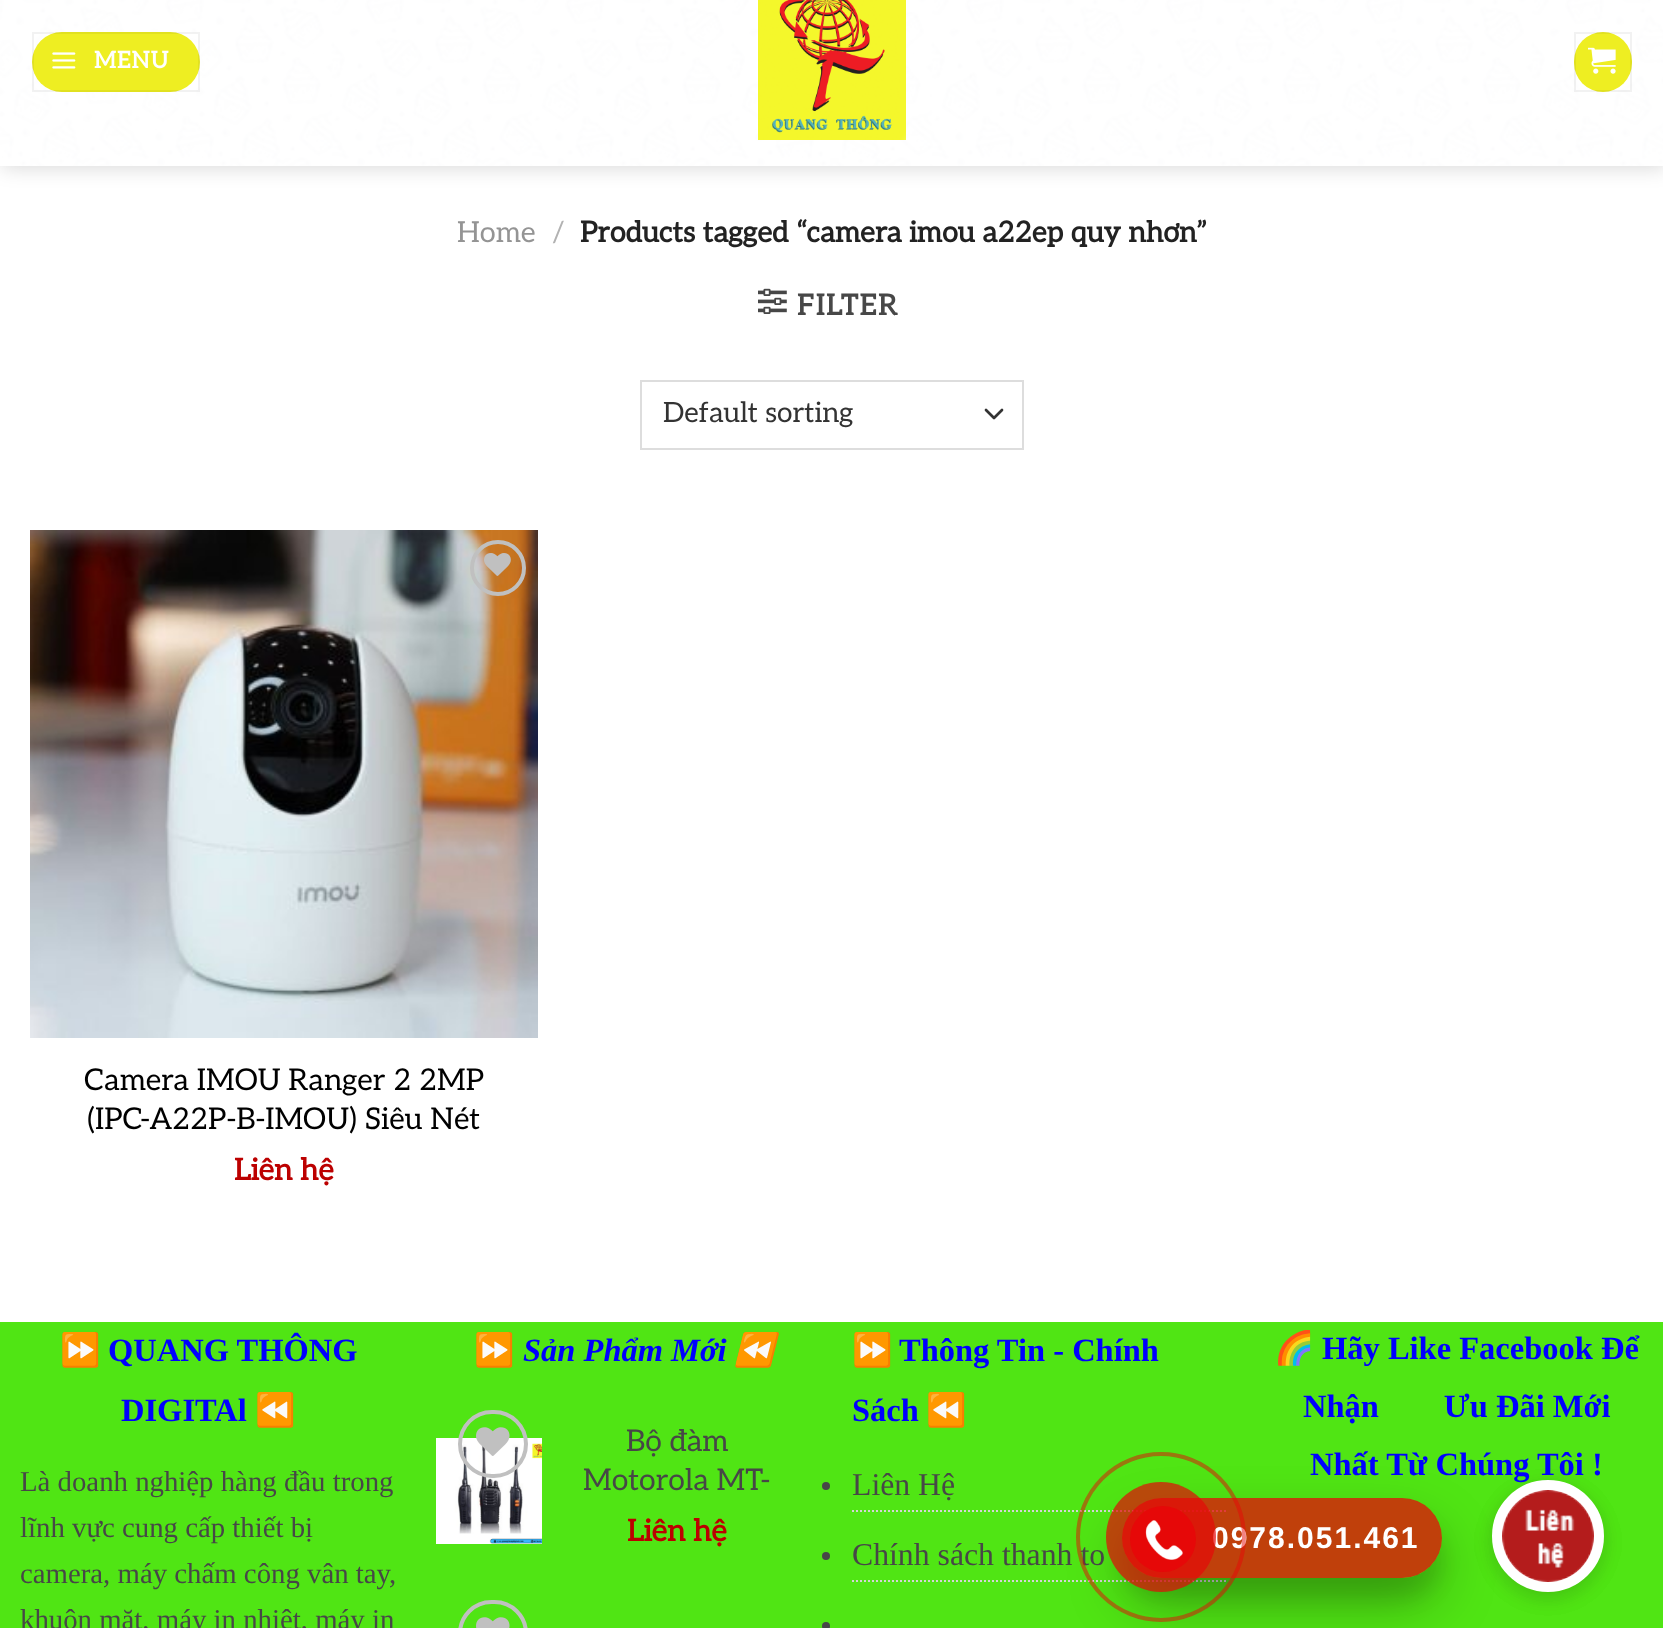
<!DOCTYPE html>
<meta charset="utf-8">
<style>body { margin: 0 } canvas { display: block }</style>
<canvas id="canvas" width="1663" height="1628"></canvas>
<img id="img1" src="img_01.png" hidden>
<img id="img2" src="img_02.png" hidden>
<img id="img3" src="img_03.png" hidden>
<img id="img4" src="img_04.png" hidden>
<img id="img5" src="img_05.png" hidden>
<img id="img6" src="img_06.png" hidden>
<img id="img7" src="img_07.png" hidden>
<img id="img8" src="img_09.png" hidden>
<img id="img9" src="img_08.png" hidden>
<img id="img10" src="img_10.png" hidden>
<img id="img11" src="img_11.png" hidden>
<img id="img12" src="img_12.png" hidden>
<script>
window.onload = function () {
	const canvas = document.getElementById("canvas");
	const ctx = canvas.getContext("2d");
	ctx.miterLimit = 4;
	ctx.fontKerning = "normal";
	function txt(s, x, y) {
		ctx.fillText(s, x, y);
	}
	function fill(x, y, w, h) {
		ctx.fillRect(x, y, w, h);
	}
	function round(x, y, w, h, r) {
		ctx.beginPath();
		ctx.roundRect(x, y, w, h, r);
		ctx.fill();
	}
	function img(id, x, y, w, h) {
		ctx.drawImage(document.getElementById(id), x, y, w, h);
	}

	ctx.fillStyle = "#FFFFFF";
	fill(0, 0, 1663, 1628);
	ctx.fillStyle = "rgba(0, 0, 0, 0.15)";
	ctx.filter = "blur(10px)";
	ctx.beginPath();
	ctx.rect(2, -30, 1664, 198);
	ctx.fill();
	ctx.filter = "none";
	img("img1", 0, 0, 1663, 166);
	ctx.fillStyle = "#EEEE22";
	round(32, 32, 168, 60, 30);
	ctx.strokeStyle = "rgba(0, 0, 0, 0.05)";
	ctx.lineWidth = 2;
	ctx.strokeRect(33, 33, 166, 58);
	img("img2", 52, 52, 24, 17);
	img("img3", 758, 0, 148, 140);
	round(1574, 32, 58, 60, 29);
	ctx.strokeRect(1575, 33, 56, 58);
	img("img4", 1588, 47, 28, 27);
	img("img5", 758, 288, 29, 26);
	ctx.beginPath();
	ctx.moveTo(986, 410);
	ctx.lineTo(994, 418);
	ctx.lineTo(1002, 410);
	ctx.strokeStyle = "#333333";
	ctx.lineWidth = 2.7;
	ctx.lineCap = "round";
	ctx.lineJoin = "round";
	ctx.stroke();
	ctx.strokeStyle = "#DDDDDD";
	ctx.lineWidth = 2;
	ctx.lineJoin = "miter";
	ctx.strokeRect(641, 381, 382, 68);
	img("img6", 30, 530, 508, 508);
	ctx.beginPath();
	ctx.arc(498, 568, 26, 0, Math.PI * 2);
	ctx.strokeStyle = "#C0C0C0";
	ctx.lineWidth = 4;
	ctx.stroke();
	img("img7", 484, 553, 27, 23);
	ctx.fillStyle = "#50E514";
	fill(0, 1322, 1663, 306);
	img("img8", 436, 1438, 106, 106);
	ctx.beginPath();
	ctx.roundRect(460, 1412, 66, 64, 32);
	ctx.stroke();
	img("img9", 476, 1427, 34, 29);
	ctx.beginPath();
	ctx.roundRect(460, 1602, 66, 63, 33);
	ctx.stroke();
	img("img10", 476, 1617, 34, 11);
	ctx.beginPath();
	ctx.moveTo(852, 1511);
	ctx.lineTo(1228, 1511);
	ctx.strokeStyle = "#D4D4D4";
	ctx.lineWidth = 2;
	ctx.lineCap = "butt";
	ctx.setLineDash([2, 2]);
	ctx.stroke();
	ctx.fillStyle = "#474747";
	ctx.beginPath();
	ctx.arc(826, 1486, 4, 0, Math.PI * 2);
	ctx.fill();
	ctx.beginPath();
	ctx.moveTo(852, 1581);
	ctx.lineTo(1228, 1581);
	ctx.stroke();
	ctx.beginPath();
	ctx.arc(826, 1556, 4, 0, Math.PI * 2);
	ctx.fill();
	ctx.beginPath();
	ctx.arc(826, 1626, 4, 0, Math.PI * 2);
	ctx.fill();
	ctx.save();
	ctx.beginPath();
	ctx.moveTo(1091, 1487);
	ctx.lineTo(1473, 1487);
	ctx.lineTo(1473, 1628);
	ctx.lineTo(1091, 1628);
	ctx.closePath();
	ctx.moveTo(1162, 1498);
	ctx.lineTo(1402, 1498);
	ctx.bezierCurveTo(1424, 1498, 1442, 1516, 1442, 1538);
	ctx.bezierCurveTo(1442, 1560, 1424, 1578, 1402, 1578);
	ctx.lineTo(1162, 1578);
	ctx.bezierCurveTo(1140, 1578, 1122, 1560, 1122, 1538);
	ctx.bezierCurveTo(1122, 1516, 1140, 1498, 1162, 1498);
	ctx.closePath();
	ctx.clip("evenodd");
	ctx.fillStyle = "rgba(0, 0, 0, 0.1)";
	ctx.filter = "blur(10px)";
	ctx.beginPath();
	ctx.roundRect(1122, 1518, 320, 80, 40);
	ctx.fill();
	ctx.filter = "none";
	ctx.restore();
	ctx.save();
	ctx.beginPath();
	ctx.moveTo(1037, 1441);
	ctx.lineTo(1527, 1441);
	ctx.lineTo(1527, 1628);
	ctx.lineTo(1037, 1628);
	ctx.closePath();
	ctx.moveTo(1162, 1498);
	ctx.lineTo(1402, 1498);
	ctx.bezierCurveTo(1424, 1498, 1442, 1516, 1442, 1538);
	ctx.bezierCurveTo(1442, 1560, 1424, 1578, 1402, 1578);
	ctx.lineTo(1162, 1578);
	ctx.bezierCurveTo(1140, 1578, 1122, 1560, 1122, 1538);
	ctx.bezierCurveTo(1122, 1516, 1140, 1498, 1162, 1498);
	ctx.closePath();
	ctx.clip("evenodd");
	ctx.fillStyle = "rgba(0, 0, 0, 0.25)";
	ctx.filter = "blur(28px)";
	ctx.beginPath();
	ctx.roundRect(1122, 1526, 320, 80, 40);
	ctx.fill();
	ctx.filter = "none";
	ctx.restore();
	ctx.fillStyle = "rgba(230, 8, 8, 0.75)";
	round(1122, 1498, 320, 80, 40);
	ctx.fillStyle = "rgba(0, 0, 0, 0.08)";
	ctx.filter = "blur(10px)";
	ctx.beginPath();
	ctx.roundRect(1492, 1486, 112, 112, 56);
	ctx.fill();
	ctx.filter = "none";
	ctx.filter = "blur(10px)";
	ctx.beginPath();
	ctx.roundRect(1492, 1486, 112, 112, 56);
	ctx.fill();
	ctx.filter = "none";
	ctx.letterSpacing = "1px";
	ctx.font = "bold 23px Aleo";
	ctx.fillStyle = "#FFFFFF";
	txt("MENU", 94, 68);
	ctx.letterSpacing = "0px";
	ctx.font = "28.8px Aleo";
	ctx.fillStyle = "#949494";
	txt("Home", 457, 242);
	ctx.fillStyle = "#B2B2B2";
	txt("/", 552, 242);
	ctx.font = "bold 28.8px Aleo";
	ctx.fillStyle = "#222222";
	txt("Products tagged “camera imou a22ep quy nhơn”", 580, 242);
	ctx.letterSpacing = "1.5px";
	ctx.fillStyle = "#474747";
	txt("FILTER", 797, 315);
	ctx.letterSpacing = "0px";
	ctx.font = "28px Aleo";
	ctx.fillStyle = "#333333";
	txt("Default sorting", 663, 422);
	ctx.font = "30px Aleo";
	ctx.fillStyle = "#000000";
	txt("Camera IMOU Ranger 2 2MP", 84, 1090);
	txt("(IPC-A22P-B-IMOU) Siêu Nét", 87, 1129);
	ctx.font = "bold 30px Aleo";
	ctx.fillStyle = "#BC0000";
	txt("Liên hệ", 234, 1180);
	ctx.font = "bold 32.5px Noto Color Emoji";
	ctx.fillStyle = "#0000FF";
	txt("⏩", 60, 1361);
	ctx.font = "bold 32.5px Liberation Serif";
	txt("QUANG THÔNG", 108, 1361);
	txt("DIGITAl", 121, 1421);
	ctx.font = "bold 32.5px Noto Color Emoji";
	txt("⏪", 255, 1421);
	ctx.font = "28.8px Liberation Serif";
	ctx.fillStyle = "#474747";
	txt("Là doanh nghiệp hàng đầu trong", 20, 1491);
	txt("lĩnh vực cung cấp thiết bị", 20, 1537);
	txt("camera, máy chấm công vân tay,", 20, 1583);
	txt("khuôn mặt, máy in nhiệt, máy in", 20, 1629);
	ctx.font = "bold 32.5px Noto Color Emoji";
	ctx.fillStyle = "#0000FF";
	txt("⏩", 474, 1361);
	ctx.font = "italic bold 32.5px Liberation Serif";
	txt("Sản Phẩm Mới", 523, 1361);
	ctx.font = "italic bold 32.5px Noto Color Emoji";
	txt("⏪", 734, 1361);
	ctx.font = "30px Aleo";
	ctx.fillStyle = "#474747";
	txt("Bộ đàm", 626, 1451);
	txt("Motorola MT-", 583, 1490);
	ctx.font = "bold 30px Aleo";
	ctx.fillStyle = "#BC0000";
	txt("Liên hệ", 627, 1541);
	ctx.font = "bold 32.5px Noto Color Emoji";
	ctx.fillStyle = "#0000FF";
	txt("⏩", 852, 1361);
	ctx.font = "bold 32.5px Liberation Serif";
	txt("Thông Tin - Chính", 899, 1361);
	txt("Sách", 852, 1421);
	ctx.font = "bold 32.5px Noto Color Emoji";
	txt("⏪", 926, 1421);
	ctx.font = "31.75px Liberation Serif";
	ctx.fillStyle = "#474747";
	txt("Liên Hệ", 852, 1495);
	txt("Chính sách thanh to", 852, 1565);
	ctx.font = "bold 32.5px Noto Color Emoji";
	ctx.fillStyle = "#744C29";
	txt("🌈", 1274, 1359);
	ctx.font = "bold 32.5px Liberation Serif";
	ctx.fillStyle = "#0000FF";
	txt("Hãy Like Facebook Để", 1322, 1359);
	txt("Nhận        Ưu Đãi Mới", 1303, 1417);
	txt("Nhất Từ Chúng Tôi !", 1310, 1475);
	ctx.letterSpacing = "2px";
	ctx.font = "bold 30px Liberation Sans";
	ctx.fillStyle = "#FFFFFF";
	txt("0978.051.461", 1212, 1548);
	ctx.beginPath();
	ctx.arc(1161, 1537, 83, 0, Math.PI * 2);
	ctx.strokeStyle = "rgba(230, 8, 8, 0.5)";
	ctx.lineWidth = 4;
	ctx.setLineDash([]);
	ctx.stroke();
	ctx.fillStyle = "rgba(230, 8, 8, 0.7)";
	ctx.beginPath();
	ctx.arc(1161, 1537, 55, 0, Math.PI * 2);
	ctx.fill();
	ctx.fillStyle = "#E60808";
	ctx.beginPath();
	ctx.arc(1163, 1539, 33, 0, Math.PI * 2);
	ctx.fill();
	img("img11", 1145, 1520, 38, 40);
	ctx.fillStyle = "#FFFFFF";
	ctx.beginPath();
	ctx.arc(1548, 1536, 51, 0, Math.PI * 2);
	ctx.fill();
	ctx.strokeStyle = "#FFFFFF";
	ctx.lineWidth = 10;
	ctx.stroke();
	img("img12", 1502, 1490, 92, 92);
};
</script>
